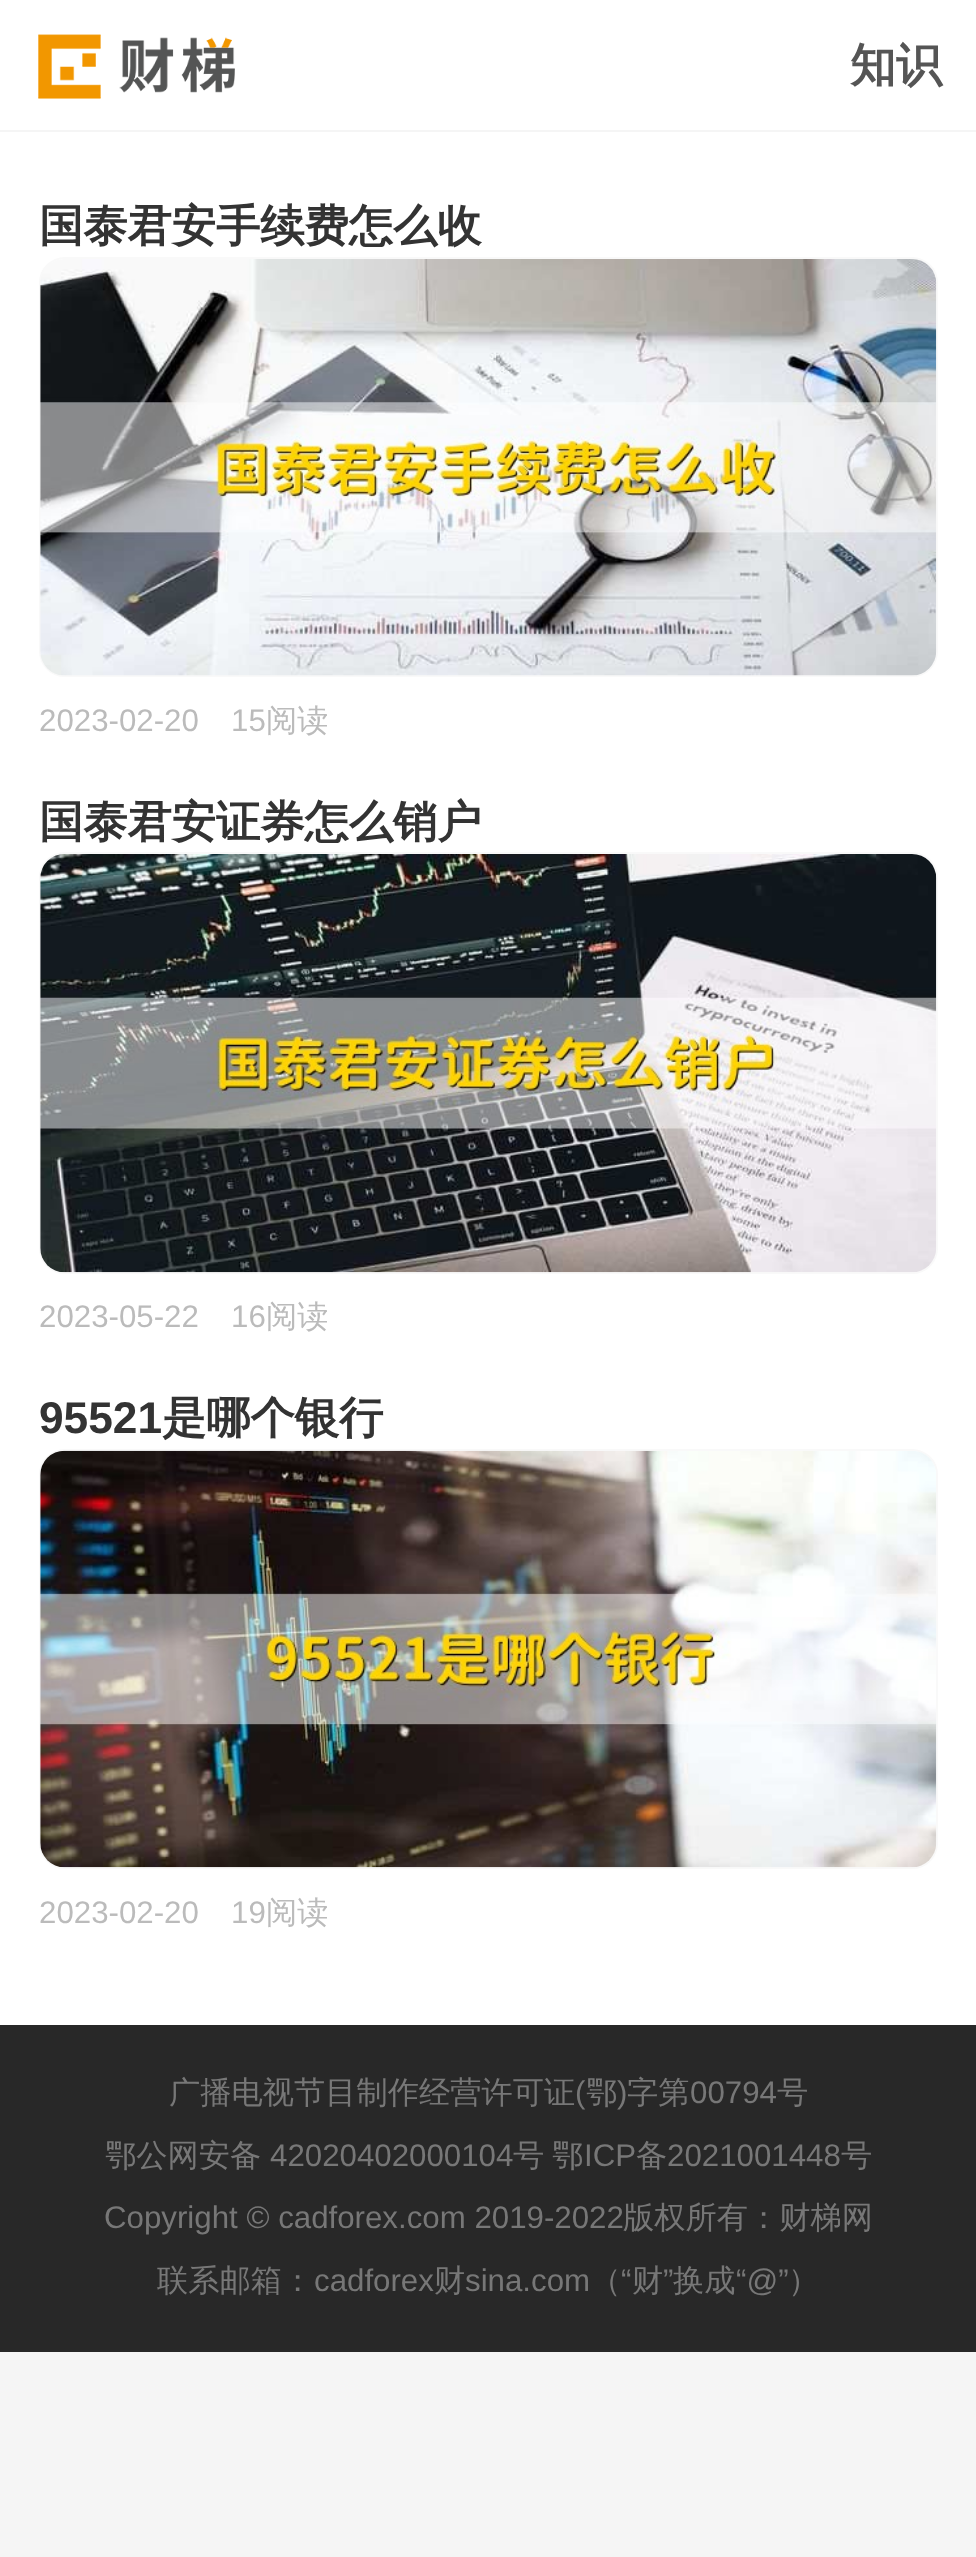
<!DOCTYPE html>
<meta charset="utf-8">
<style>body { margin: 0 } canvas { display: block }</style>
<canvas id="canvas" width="976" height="2557"></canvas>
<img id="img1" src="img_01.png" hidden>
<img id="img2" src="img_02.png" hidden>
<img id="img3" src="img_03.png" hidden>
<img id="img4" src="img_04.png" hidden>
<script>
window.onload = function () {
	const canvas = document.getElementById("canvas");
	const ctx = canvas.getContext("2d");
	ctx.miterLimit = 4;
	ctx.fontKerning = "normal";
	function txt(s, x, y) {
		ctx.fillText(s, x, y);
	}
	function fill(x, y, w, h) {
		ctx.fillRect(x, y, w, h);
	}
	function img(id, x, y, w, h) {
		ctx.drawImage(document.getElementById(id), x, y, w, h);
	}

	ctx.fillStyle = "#F5F5F5";
	fill(0, 0, 976, 2557);
	ctx.fillStyle = "#FFFFFF";
	fill(0, 0, 976, 130);
	img("img1", 38, 34, 197, 65);
	fill(0, 132, 976, 1893);
	ctx.beginPath();
	ctx.roundRect(40, 258, 897, 418, 25);
	ctx.strokeStyle = "#F9F9F9";
	ctx.lineWidth = 2;
	ctx.stroke();
	img("img2", 40, 259, 897, 417);
	ctx.beginPath();
	ctx.roundRect(40, 853, 897, 420, 25);
	ctx.stroke();
	img("img3", 40, 854, 897, 419);
	ctx.beginPath();
	ctx.roundRect(40, 1450, 897, 418, 25);
	ctx.stroke();
	img("img4", 40, 1450, 897, 418);
	ctx.fillStyle = "#282828";
	fill(0, 2025, 976, 327);
	ctx.font = "bold 46px WenQuanYi Zen Hei";
	ctx.fillStyle = "#555555";
	txt("知识", 850, 81);
	ctx.font = "bold 44.25px WenQuanYi Zen Hei";
	ctx.fillStyle = "#333333";
	txt("国泰君安手续费怎么收", 39, 241);
	ctx.font = "31.25px Liberation Sans";
	ctx.fillStyle = "#BBBBBB";
	txt("2023-02-20", 39, 731);
	txt("15", 231, 731);
	ctx.font = "500 31.25px WenQuanYi Zen Hei";
	txt("阅读", 266, 731);
	ctx.font = "bold 44.25px WenQuanYi Zen Hei";
	ctx.fillStyle = "#333333";
	txt("国泰君安证券怎么销户", 39, 837);
	ctx.font = "31.25px Liberation Sans";
	ctx.fillStyle = "#BBBBBB";
	txt("2023-05-22", 39, 1327);
	txt("16", 231, 1327);
	ctx.font = "500 31.25px WenQuanYi Zen Hei";
	txt("阅读", 266, 1327);
	ctx.font = "bold 44.25px Liberation Sans";
	ctx.fillStyle = "#333333";
	txt("95521", 39, 1433);
	ctx.font = "bold 44.25px WenQuanYi Zen Hei";
	txt("是哪个银行", 162, 1433);
	ctx.font = "31.25px Liberation Sans";
	ctx.fillStyle = "#BBBBBB";
	txt("2023-02-20", 39, 1923);
	txt("19", 231, 1923);
	ctx.font = "500 31.25px WenQuanYi Zen Hei";
	txt("阅读", 266, 1923);
	ctx.fillStyle = "#777777";
	txt("广播电视节目制作经营许可证", 169, 2103);
	ctx.font = "31.25px Liberation Sans";
	txt("(", 575, 2103);
	ctx.font = "500 31.25px WenQuanYi Zen Hei";
	txt("鄂", 586, 2103);
	ctx.font = "31.25px Liberation Sans";
	txt(")", 617, 2103);
	ctx.font = "500 31.25px WenQuanYi Zen Hei";
	txt("字第", 627, 2103);
	ctx.font = "31.25px Liberation Sans";
	txt("00794", 690, 2103);
	ctx.font = "500 31.25px WenQuanYi Zen Hei";
	txt("号", 777, 2103);
	txt("鄂公网安备", 105, 2166);
	ctx.font = "31.25px Liberation Sans";
	txt("42020402000104", 270, 2166);
	ctx.font = "500 31.25px WenQuanYi Zen Hei";
	txt("号", 513, 2166);
	txt("鄂", 552, 2166);
	ctx.font = "31.25px Liberation Sans";
	txt("ICP", 584, 2166);
	ctx.font = "500 31.25px WenQuanYi Zen Hei";
	txt("备", 636, 2166);
	ctx.font = "31.25px Liberation Sans";
	txt("2021001448", 667, 2166);
	ctx.font = "500 31.25px WenQuanYi Zen Hei";
	txt("号", 841, 2166);
	ctx.font = "31.25px Liberation Sans";
	txt("Copyright © cadforex.com 2019-2022", 104, 2228);
	ctx.font = "500 31.25px WenQuanYi Zen Hei";
	txt("版权所有：财梯网", 623, 2228);
	txt("联系邮箱：", 157, 2291);
	ctx.font = "31.25px Liberation Sans";
	txt("cadforex", 314, 2291);
	ctx.font = "500 31.25px WenQuanYi Zen Hei";
	txt("财", 434, 2291);
	ctx.font = "31.25px Liberation Sans";
	txt("sina.com", 465, 2291);
	ctx.font = "500 31.25px WenQuanYi Zen Hei";
	txt("（", 590, 2291);
	ctx.font = "31.25px Liberation Sans";
	txt("“", 621, 2291);
	ctx.font = "500 31.25px WenQuanYi Zen Hei";
	txt("财", 632, 2291);
	ctx.font = "31.25px Liberation Sans";
	txt("”", 663, 2291);
	ctx.font = "500 31.25px WenQuanYi Zen Hei";
	txt("换成", 673, 2291);
	ctx.font = "31.25px Liberation Sans";
	txt("“@”", 736, 2291);
	ctx.font = "500 31.25px WenQuanYi Zen Hei";
	txt("）", 788, 2291);
};
</script>
